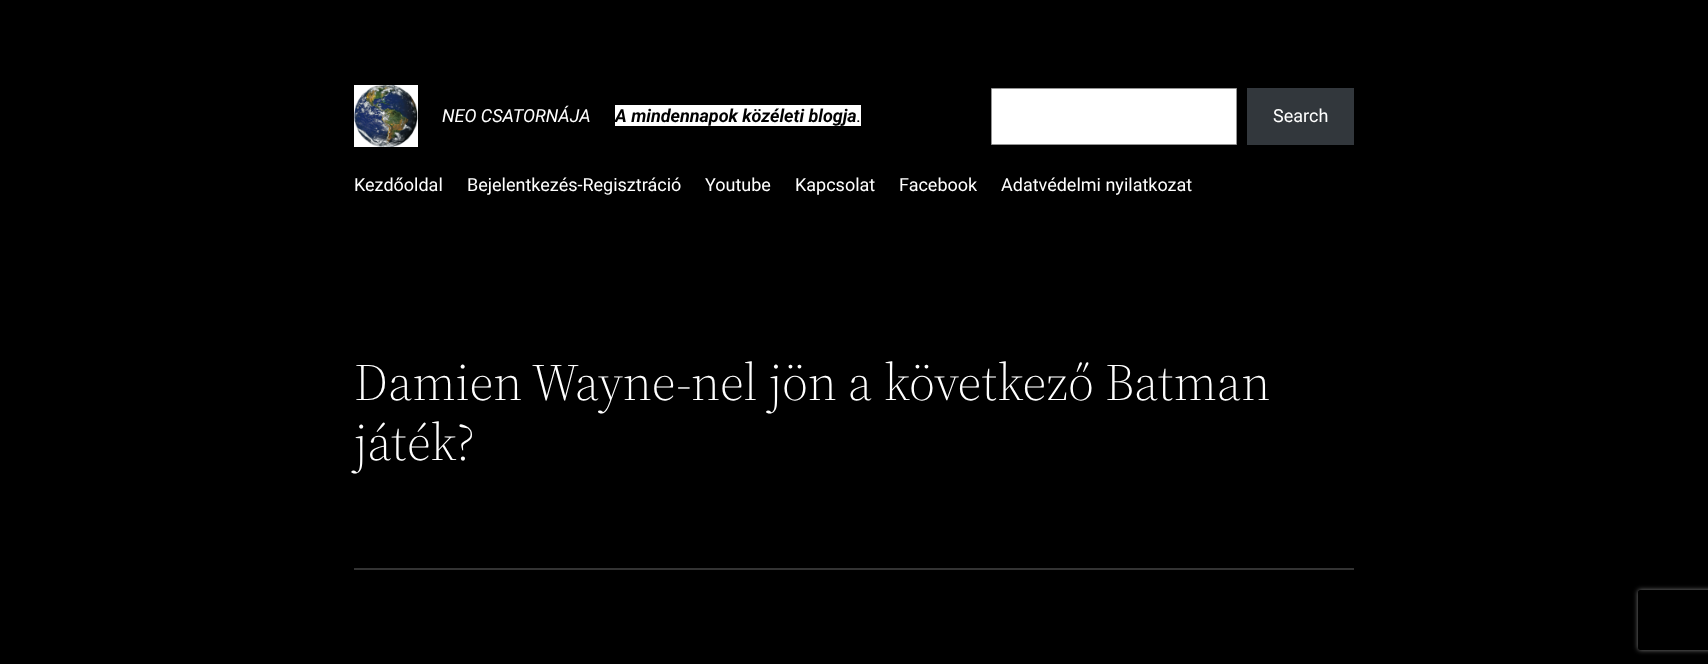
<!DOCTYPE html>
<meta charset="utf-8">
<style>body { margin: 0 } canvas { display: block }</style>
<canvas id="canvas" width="1708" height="664"></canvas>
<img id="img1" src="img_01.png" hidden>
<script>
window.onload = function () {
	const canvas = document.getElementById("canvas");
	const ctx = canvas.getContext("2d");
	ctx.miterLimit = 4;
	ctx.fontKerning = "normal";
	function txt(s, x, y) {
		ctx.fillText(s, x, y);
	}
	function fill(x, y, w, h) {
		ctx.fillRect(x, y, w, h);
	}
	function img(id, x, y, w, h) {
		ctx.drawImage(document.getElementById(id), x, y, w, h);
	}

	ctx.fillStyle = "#000000";
	fill(0, 0, 1708, 664);
	img("img1", 354, 85, 64, 62);
	ctx.fillStyle = "#FFFFFF";
	fill(615, 105, 246, 21);
	ctx.beginPath();
	ctx.rect(991.5, 88.5, 245, 56);
	ctx.fill();
	ctx.strokeStyle = "#949494";
	ctx.stroke();
	ctx.fillStyle = "#32373C";
	fill(1247, 88, 107, 57);
	ctx.fillStyle = "#333333";
	fill(354, 568, 1000, 2);
	ctx.save();
	ctx.beginPath();
	ctx.moveTo(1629, 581);
	ctx.lineTo(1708, 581);
	ctx.lineTo(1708, 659);
	ctx.lineTo(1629, 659);
	ctx.closePath();
	ctx.moveTo(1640, 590);
	ctx.lineTo(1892, 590);
	ctx.bezierCurveTo(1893, 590, 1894, 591, 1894, 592);
	ctx.lineTo(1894, 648);
	ctx.bezierCurveTo(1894, 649, 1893, 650, 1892, 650);
	ctx.lineTo(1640, 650);
	ctx.bezierCurveTo(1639, 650, 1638, 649, 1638, 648);
	ctx.lineTo(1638, 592);
	ctx.bezierCurveTo(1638, 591, 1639, 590, 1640, 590);
	ctx.closePath();
	ctx.clip("evenodd");
	ctx.fillStyle = "#808080";
	ctx.filter = "blur(2.5px)";
	ctx.beginPath();
	ctx.roundRect(1638, 590, 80, 60, 2);
	ctx.fill();
	ctx.filter = "none";
	ctx.restore();
	ctx.font = "italic 18px Roboto";
	ctx.fillStyle = "#FFFFFF";
	txt("NEO CSATORNÁJA", 442, 122);
	ctx.font = "italic bold 18px Roboto";
	ctx.fillStyle = "#000000";
	txt("A mindennapok közéleti blogja", 615, 122);
	ctx.font = "18px Roboto";
	txt(".", 856, 122);
	ctx.fillStyle = "#FFFFFF";
	txt("Search", 1273, 122);
	txt("Kezdőoldal", 354, 191);
	txt("Bejelentkezés-Regisztráció", 467, 191);
	txt("Youtube", 705, 191);
	txt("Kapcsolat", 795, 191);
	txt("Facebook", 899, 191);
	txt("Adatvédelmi nyilatkozat", 1001, 191);
	ctx.font = "300 52px 'Source Serif 4'";
	txt("Damien Wayne-nel jön a következő Batman", 354, 400);
	txt("játék?", 354, 460);
};
</script>
